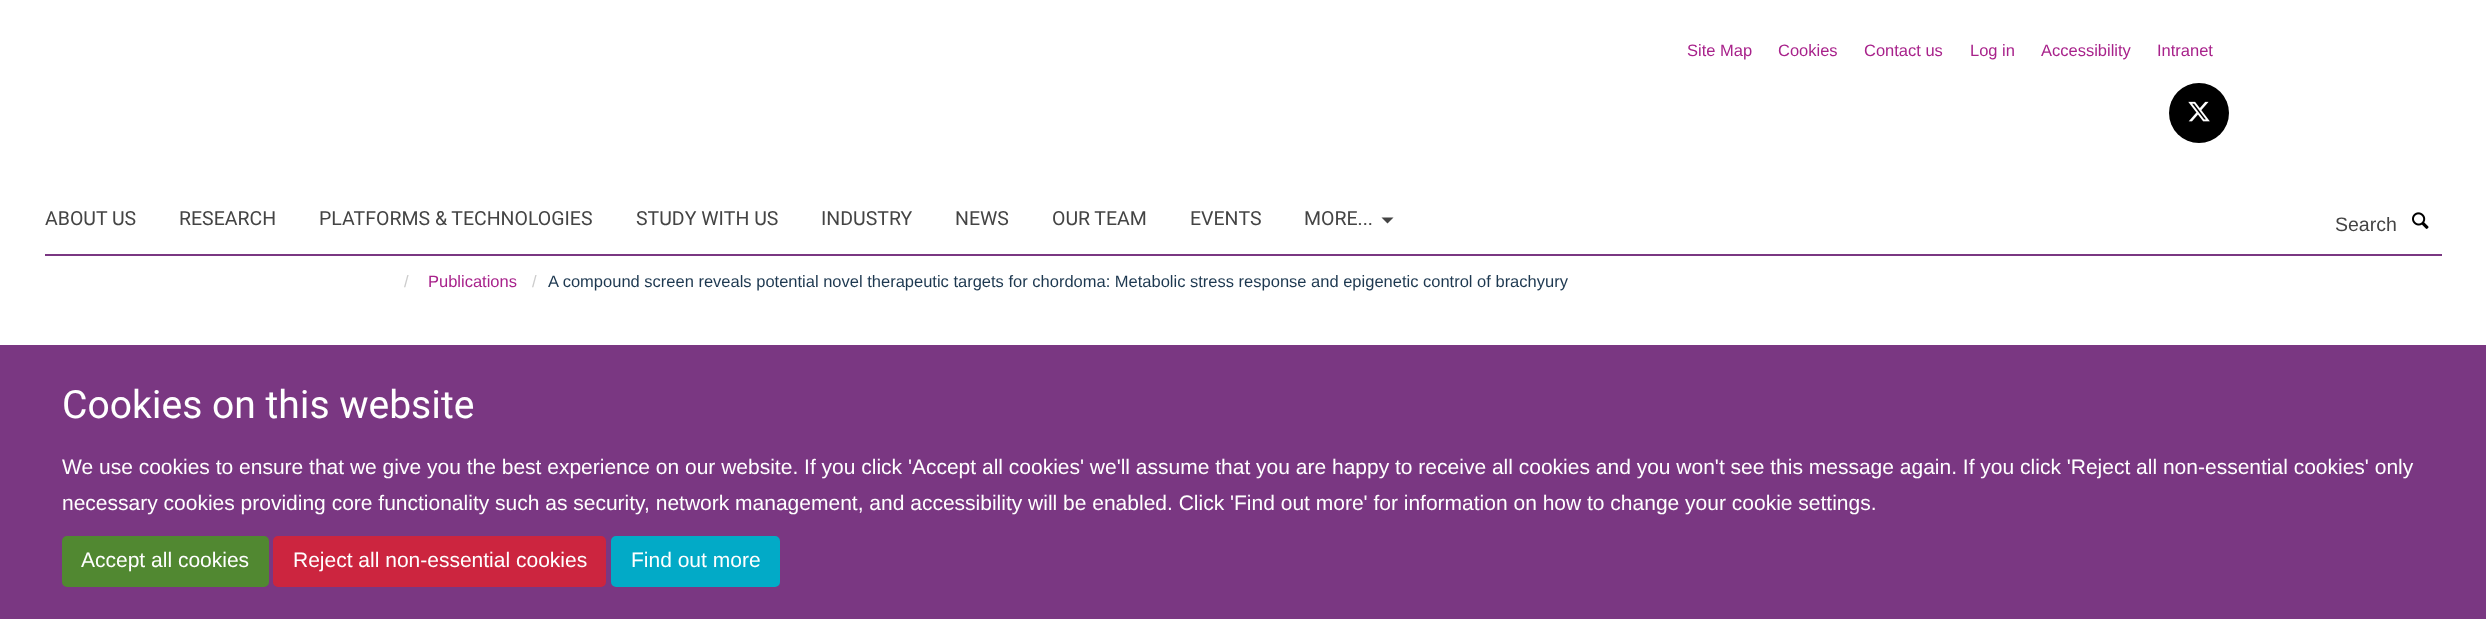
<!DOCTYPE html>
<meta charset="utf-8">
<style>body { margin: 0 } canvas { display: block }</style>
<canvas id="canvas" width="2486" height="619"></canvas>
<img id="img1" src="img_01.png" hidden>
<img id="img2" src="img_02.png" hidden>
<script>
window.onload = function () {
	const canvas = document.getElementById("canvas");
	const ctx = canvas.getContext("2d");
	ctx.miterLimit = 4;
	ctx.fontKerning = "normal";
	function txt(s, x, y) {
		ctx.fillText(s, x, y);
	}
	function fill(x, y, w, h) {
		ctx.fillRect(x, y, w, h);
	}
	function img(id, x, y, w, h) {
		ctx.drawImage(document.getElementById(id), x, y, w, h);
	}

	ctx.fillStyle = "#FFFFFF";
	fill(0, 0, 2486, 619);
	ctx.fillStyle = "#000000";
	ctx.beginPath();
	ctx.arc(2199, 113, 30, 0, Math.PI * 2);
	ctx.fill();
	img("img1", 2188, 101, 22, 21);
	ctx.fillStyle = "#7A3782";
	fill(45, 254, 2397, 2);
	ctx.fillStyle = "#444444";
	ctx.beginPath();
	ctx.moveTo(1381.5, 217.5);
	ctx.lineTo(1393.5, 217.5);
	ctx.lineTo(1387.5, 223.5);
	ctx.closePath();
	ctx.fill();
	img("img2", 2412, 212, 17, 17);
	ctx.fillStyle = "#7A3782";
	fill(0, 345, 2486, 274);
	ctx.fillStyle = "#518831";
	ctx.beginPath();
	ctx.roundRect(63, 537, 205, 49, 4);
	ctx.fill();
	ctx.strokeStyle = "#518831";
	ctx.lineWidth = 2;
	ctx.stroke();
	ctx.fillStyle = "#CC253F";
	ctx.beginPath();
	ctx.roundRect(274, 537, 331, 49, 4);
	ctx.fill();
	ctx.strokeStyle = "#CC253F";
	ctx.stroke();
	ctx.fillStyle = "#02AAC7";
	ctx.beginPath();
	ctx.roundRect(612, 537, 167, 49, 4);
	ctx.fill();
	ctx.strokeStyle = "#02AAC7";
	ctx.stroke();
	ctx.font = "16.5px Liberation Sans";
	ctx.fillStyle = "#A8228B";
	txt("Site Map", 1687, 56);
	txt("Cookies", 1778, 56);
	txt("Contact us", 1864, 56);
	txt("Log in", 1970, 56);
	txt("Accessibility", 2041, 56);
	txt("Intranet", 2157, 56);
	ctx.font = "19.5px Heebo";
	ctx.fillStyle = "#444444";
	txt("ABOUT US", 45, 225);
	txt("RESEARCH", 179, 225);
	txt("PLATFORMS & TECHNOLOGIES", 319, 225);
	txt("STUDY WITH US", 636, 225);
	txt("INDUSTRY", 821, 225);
	txt("NEWS", 955, 225);
	txt("OUR TEAM", 1052, 225);
	txt("EVENTS", 1190, 225);
	txt("MORE...", 1304, 225);
	ctx.font = "19.5px Liberation Sans";
	txt("Search", 2335, 231);
	ctx.font = "16.5px Liberation Sans";
	ctx.fillStyle = "#CCCCCC";
	txt("/", 404, 287);
	ctx.fillStyle = "#A8228B";
	txt("Publications", 428, 287);
	ctx.fillStyle = "#CCCCCC";
	txt("/", 532, 287);
	ctx.fillStyle = "#1D3850";
	txt("A compound screen reveals potential novel therapeutic targets for chordoma: Metabolic stress response and epigenetic control of brachyury", 548, 287);
	ctx.font = "39px Heebo";
	ctx.fillStyle = "#FFFFFF";
	txt("Cookies on this website", 62, 418);
	ctx.font = "21px Liberation Sans";
	txt("We use cookies to ensure that we give you the best experience on our website. If you click 'Accept all cookies' we'll assume that you are happy to receive all cookies and you won't see this message again. If you click 'Reject all non-essential cookies' only", 62, 474);
	txt("necessary cookies providing core functionality such as security, network management, and accessibility will be enabled. Click 'Find out more' for information on how to change your cookie settings.", 62, 510);
	txt("Accept all cookies", 81, 567);
	txt("Reject all non-essential cookies", 293, 567);
	txt("Find out more", 631, 567);
};
</script>
